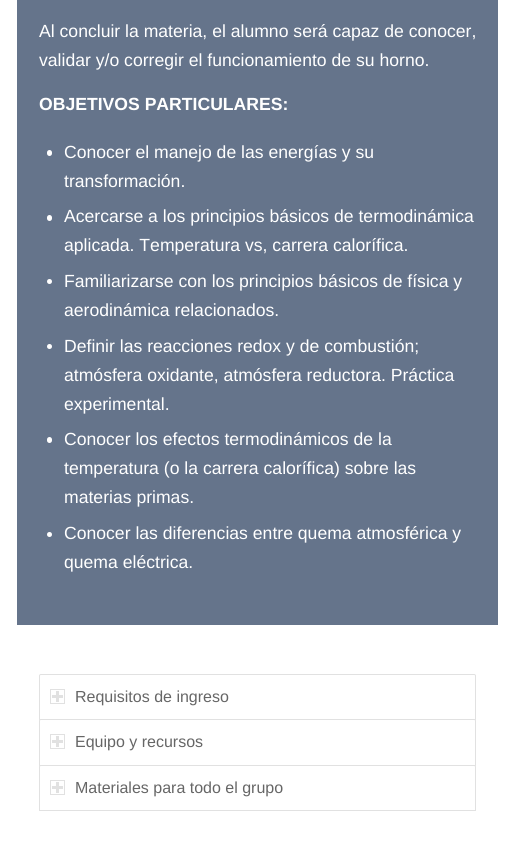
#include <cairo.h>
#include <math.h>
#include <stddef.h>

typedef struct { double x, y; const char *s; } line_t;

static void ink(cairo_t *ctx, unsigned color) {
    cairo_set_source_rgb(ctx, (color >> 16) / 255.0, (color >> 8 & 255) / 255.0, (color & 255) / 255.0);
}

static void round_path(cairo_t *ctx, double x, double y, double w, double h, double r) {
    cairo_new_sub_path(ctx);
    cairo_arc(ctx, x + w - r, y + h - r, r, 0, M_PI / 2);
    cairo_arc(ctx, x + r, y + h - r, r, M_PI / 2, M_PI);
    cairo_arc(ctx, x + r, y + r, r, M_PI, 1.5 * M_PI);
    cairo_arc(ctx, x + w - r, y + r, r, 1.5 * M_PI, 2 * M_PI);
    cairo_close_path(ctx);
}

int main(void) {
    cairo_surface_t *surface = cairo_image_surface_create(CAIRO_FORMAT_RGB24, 515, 860);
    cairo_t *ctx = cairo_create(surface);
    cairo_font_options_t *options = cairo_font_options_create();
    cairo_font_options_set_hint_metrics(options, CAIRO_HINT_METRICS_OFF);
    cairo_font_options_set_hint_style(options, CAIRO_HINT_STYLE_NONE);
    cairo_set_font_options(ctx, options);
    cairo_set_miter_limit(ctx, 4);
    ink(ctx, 0xFFFFFF);
    cairo_paint(ctx);
    ink(ctx, 0x65748B);
    cairo_rectangle(ctx, 17, 0, 481, 625);
    cairo_fill(ctx);
    cairo_select_font_face(ctx, "Liberation Sans", CAIRO_FONT_SLANT_NORMAL, CAIRO_FONT_WEIGHT_NORMAL);
    cairo_set_font_size(ctx, 17.6);
    ink(ctx, 0xFFFFFF);
    cairo_move_to(ctx, 39, 37);
    cairo_show_text(ctx, "Al concluir la materia, el alumno será capaz de conocer,");
    cairo_move_to(ctx, 39, 66);
    cairo_show_text(ctx, "validar y/o corregir el funcionamiento de su horno.");
    cairo_select_font_face(ctx, "Liberation Sans", CAIRO_FONT_SLANT_NORMAL, CAIRO_FONT_WEIGHT_BOLD);
    cairo_move_to(ctx, 39, 110);
    cairo_show_text(ctx, "OBJETIVOS PARTICULARES:");
    round_path(ctx, 47, 150, 5, 6, 2.5);
    cairo_fill(ctx);
    cairo_select_font_face(ctx, "Liberation Sans", CAIRO_FONT_SLANT_NORMAL, CAIRO_FONT_WEIGHT_NORMAL);
    cairo_move_to(ctx, 64, 158);
    cairo_show_text(ctx, "Conocer el manejo de las energías y su");
    cairo_move_to(ctx, 64, 187);
    cairo_show_text(ctx, "transformación.");
    round_path(ctx, 47, 215, 5, 6, 2.5);
    cairo_fill(ctx);
    cairo_move_to(ctx, 64, 222);
    cairo_show_text(ctx, "Acercarse a los principios básicos de termodinámica");
    cairo_move_to(ctx, 64, 251);
    cairo_show_text(ctx, "aplicada. Temperatura vs, carrera calorífica.");
    cairo_new_path(ctx);
    cairo_arc(ctx, 49.5, 281.5, 2.5, 0, 2 * M_PI);
    cairo_fill(ctx);
    cairo_move_to(ctx, 64, 287);
    cairo_show_text(ctx, "Familiarizarse con los principios básicos de física y");
    cairo_move_to(ctx, 64, 316);
    cairo_show_text(ctx, "aerodinámica relacionados.");
    cairo_new_path(ctx);
    cairo_arc(ctx, 49.5, 346.5, 2.5, 0, 2 * M_PI);
    cairo_fill(ctx);
    {
        static const line_t items[] = {
            {64, 352, "Definir las reacciones redox y de combustión;"},
            {64, 381, "atmósfera oxidante, atmósfera reductora. Práctica"},
            {64, 410, "experimental."},
        };
        for (size_t i = 0; i < sizeof items / sizeof *items; i++) {
            cairo_move_to(ctx, items[i].x, items[i].y);
            cairo_show_text(ctx, items[i].s);
        }
    }
    round_path(ctx, 47, 437, 5, 6, 2.5);
    cairo_fill(ctx);
    {
        static const line_t items[] = {
            {64, 445, "Conocer los efectos termodinámicos de la"},
            {64, 474, "temperatura (o la carrera calorífica) sobre las"},
            {64, 503, "materias primas."},
        };
        for (size_t i = 0; i < sizeof items / sizeof *items; i++) {
            cairo_move_to(ctx, items[i].x, items[i].y);
            cairo_show_text(ctx, items[i].s);
        }
    }
    cairo_new_path(ctx);
    cairo_arc(ctx, 49.5, 534.5, 2.5, 0, 2 * M_PI);
    cairo_fill(ctx);
    cairo_move_to(ctx, 64, 539);
    cairo_show_text(ctx, "Conocer las diferencias entre quema atmosférica y");
    cairo_move_to(ctx, 64, 568);
    cairo_show_text(ctx, "quema eléctrica.");
    cairo_new_path(ctx);
    cairo_move_to(ctx, 41, 674.5);
    cairo_line_to(ctx, 474, 674.5);
    cairo_curve_to(ctx, 475, 674.5, 475.5, 675, 475.5, 676);
    cairo_line_to(ctx, 475.5, 719.5);
    cairo_line_to(ctx, 39.5, 719.5);
    cairo_line_to(ctx, 39.5, 676);
    cairo_curve_to(ctx, 39.5, 675, 40, 674.5, 41, 674.5);
    cairo_close_path(ctx);
    ink(ctx, 0xE1E1E1);
    cairo_set_line_width(ctx, 1);
    cairo_stroke(ctx);
    cairo_rectangle(ctx, 50.5, 689.5, 14, 14);
    cairo_stroke(ctx);
    cairo_rectangle(ctx, 56, 691, 3, 11);
    cairo_fill(ctx);
    cairo_rectangle(ctx, 52, 695, 11, 3);
    cairo_fill(ctx);
    cairo_set_font_size(ctx, 16);
    ink(ctx, 0x666666);
    cairo_move_to(ctx, 75, 702);
    cairo_show_text(ctx, "Requisitos de ingreso");
    ink(ctx, 0xFFFFFF);
    cairo_new_path(ctx);
    cairo_move_to(ctx, 41, 719.5);
    cairo_line_to(ctx, 474, 719.5);
    cairo_curve_to(ctx, 475, 719.5, 475.5, 720, 475.5, 721);
    cairo_line_to(ctx, 475.5, 765.5);
    cairo_line_to(ctx, 39.5, 765.5);
    cairo_line_to(ctx, 39.5, 721);
    cairo_curve_to(ctx, 39.5, 720, 40, 719.5, 41, 719.5);
    cairo_close_path(ctx);
    cairo_fill_preserve(ctx);
    ink(ctx, 0xE1E1E1);
    cairo_stroke(ctx);
    cairo_rectangle(ctx, 50.5, 734.5, 14, 14);
    cairo_stroke(ctx);
    cairo_rectangle(ctx, 56, 736, 3, 11);
    cairo_fill(ctx);
    cairo_rectangle(ctx, 52, 740, 11, 3);
    cairo_fill(ctx);
    ink(ctx, 0x666666);
    cairo_move_to(ctx, 75, 747);
    cairo_show_text(ctx, "Equipo y recursos");
    ink(ctx, 0xFFFFFF);
    cairo_new_path(ctx);
    cairo_move_to(ctx, 41, 765.5);
    cairo_line_to(ctx, 474, 765.5);
    cairo_curve_to(ctx, 475, 765.5, 475.5, 766, 475.5, 767);
    cairo_line_to(ctx, 475.5, 810.5);
    cairo_line_to(ctx, 39.5, 810.5);
    cairo_line_to(ctx, 39.5, 767);
    cairo_curve_to(ctx, 39.5, 766, 40, 765.5, 41, 765.5);
    cairo_close_path(ctx);
    cairo_fill_preserve(ctx);
    ink(ctx, 0xE1E1E1);
    cairo_stroke(ctx);
    cairo_rectangle(ctx, 50.5, 780.5, 14, 14);
    cairo_stroke(ctx);
    cairo_rectangle(ctx, 56, 782, 3, 11);
    cairo_fill(ctx);
    cairo_rectangle(ctx, 52, 786, 11, 3);
    cairo_fill(ctx);
    ink(ctx, 0x666666);
    cairo_move_to(ctx, 75, 793);
    cairo_show_text(ctx, "Materiales para todo el grupo");
    cairo_surface_write_to_png(surface, "image.png");
    cairo_font_options_destroy(options);
    cairo_destroy(ctx);
    cairo_surface_destroy(surface);
    return 0;
}
